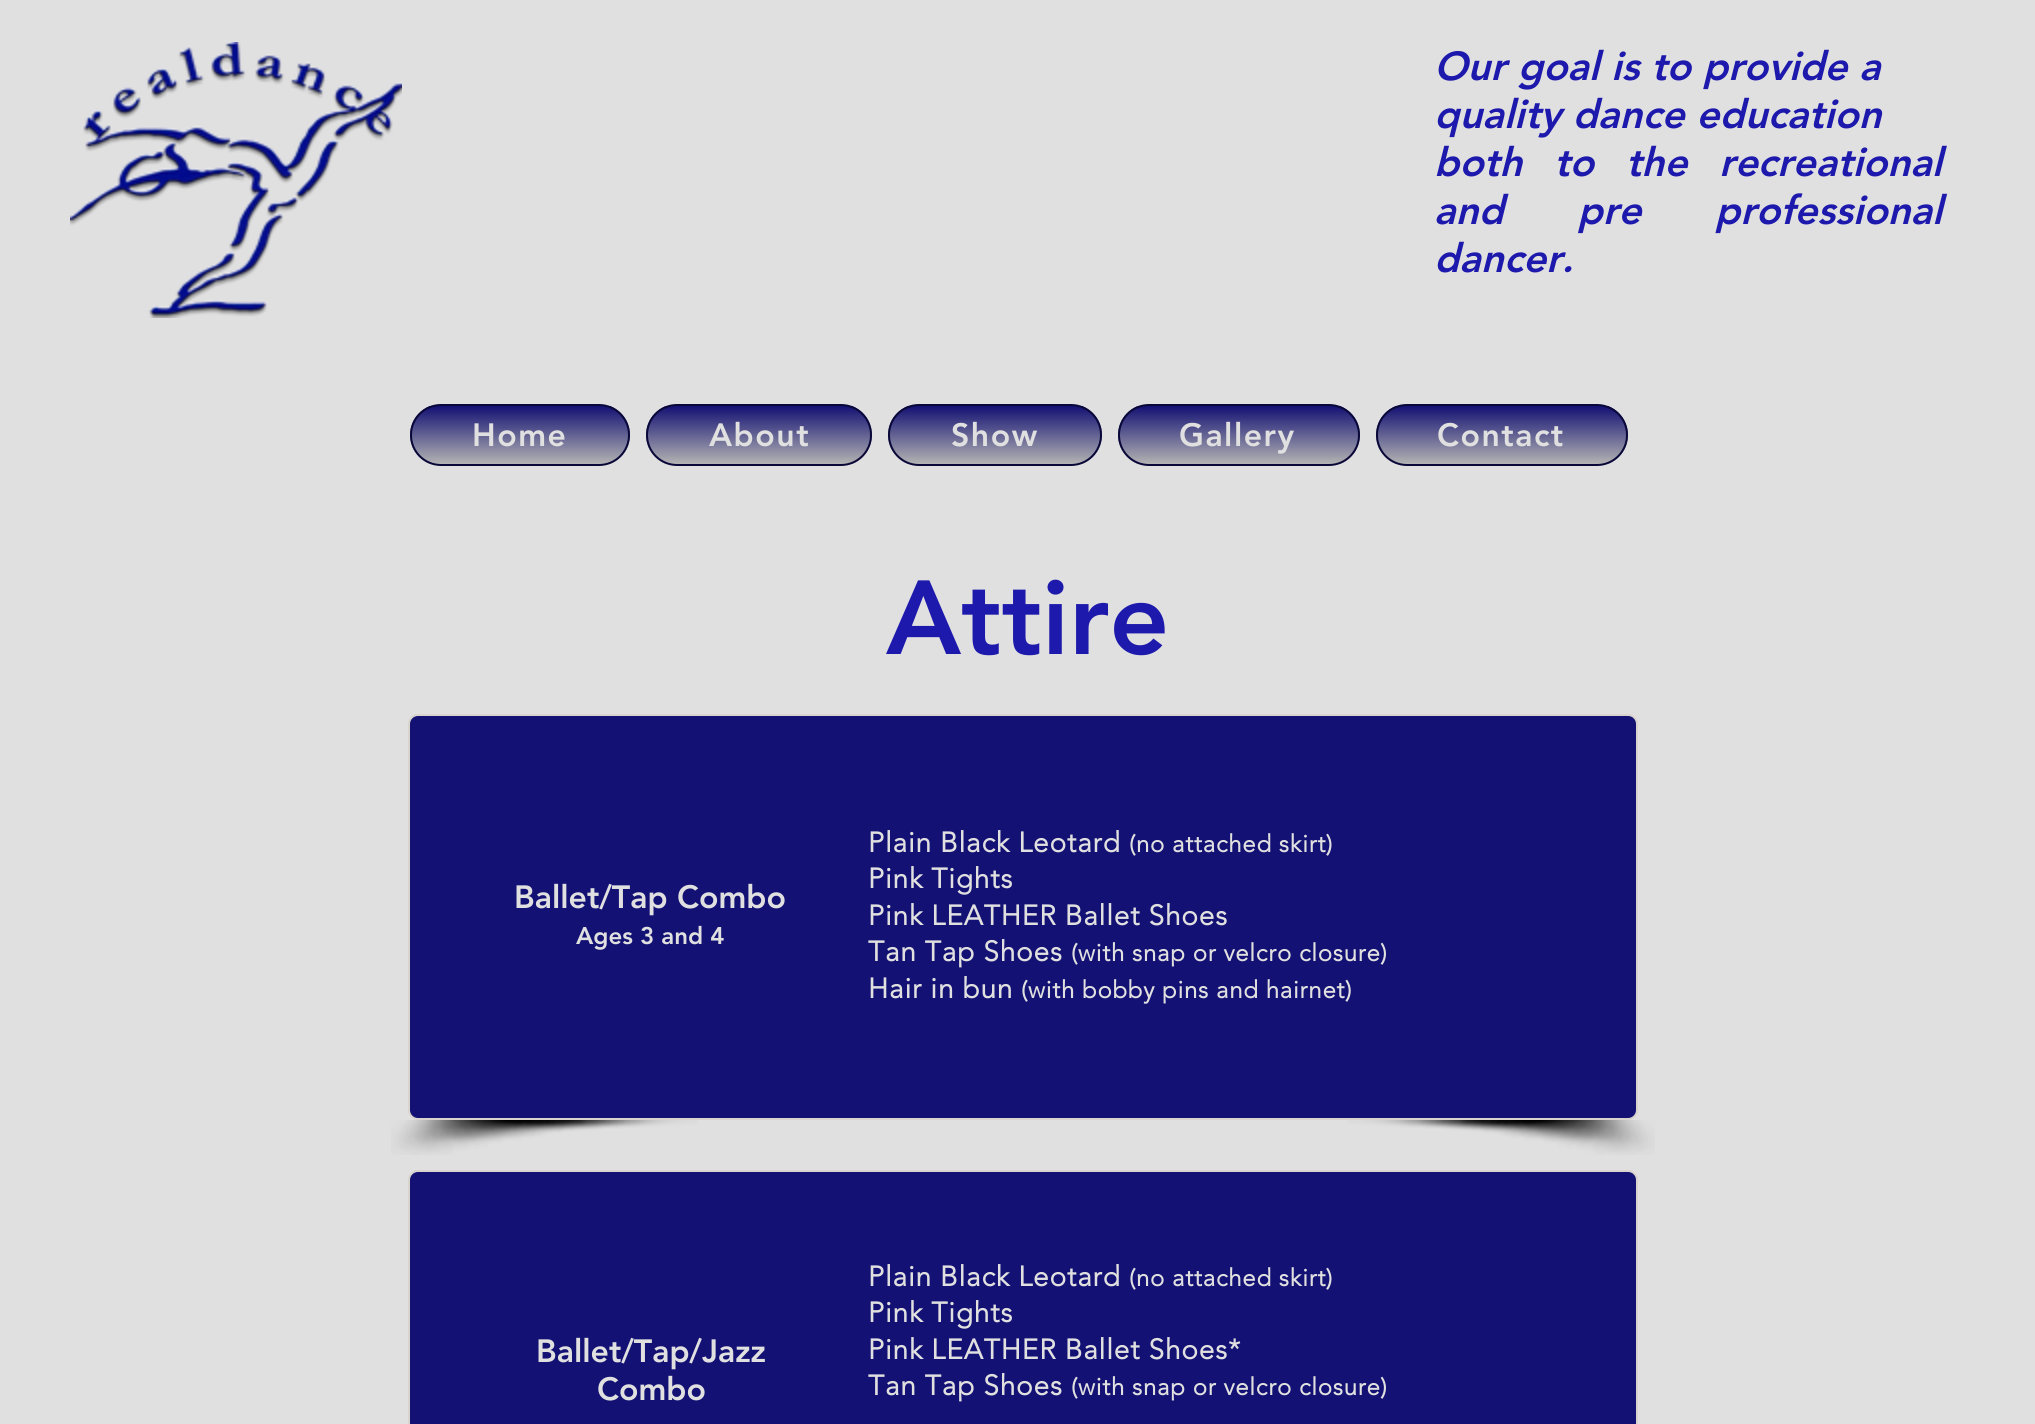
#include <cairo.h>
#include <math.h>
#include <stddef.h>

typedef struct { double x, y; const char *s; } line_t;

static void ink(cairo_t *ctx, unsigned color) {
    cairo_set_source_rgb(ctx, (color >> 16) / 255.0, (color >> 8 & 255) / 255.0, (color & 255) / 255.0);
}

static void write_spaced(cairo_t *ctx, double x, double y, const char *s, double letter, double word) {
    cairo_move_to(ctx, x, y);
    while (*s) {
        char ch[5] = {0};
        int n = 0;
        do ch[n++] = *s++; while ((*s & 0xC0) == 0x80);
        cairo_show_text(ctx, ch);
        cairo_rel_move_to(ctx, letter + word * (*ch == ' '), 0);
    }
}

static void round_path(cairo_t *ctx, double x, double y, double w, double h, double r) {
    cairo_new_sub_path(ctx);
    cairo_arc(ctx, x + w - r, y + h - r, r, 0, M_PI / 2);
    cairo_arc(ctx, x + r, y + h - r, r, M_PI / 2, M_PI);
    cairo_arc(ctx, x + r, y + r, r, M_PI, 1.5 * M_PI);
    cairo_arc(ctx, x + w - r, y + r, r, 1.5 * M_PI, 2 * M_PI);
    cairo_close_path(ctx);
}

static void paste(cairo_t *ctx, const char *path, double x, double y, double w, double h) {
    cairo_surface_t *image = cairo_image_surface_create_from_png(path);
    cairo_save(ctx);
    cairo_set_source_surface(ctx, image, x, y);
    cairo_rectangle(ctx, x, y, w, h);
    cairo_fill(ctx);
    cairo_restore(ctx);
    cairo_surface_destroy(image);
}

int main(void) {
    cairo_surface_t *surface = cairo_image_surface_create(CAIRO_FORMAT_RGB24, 2035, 1424);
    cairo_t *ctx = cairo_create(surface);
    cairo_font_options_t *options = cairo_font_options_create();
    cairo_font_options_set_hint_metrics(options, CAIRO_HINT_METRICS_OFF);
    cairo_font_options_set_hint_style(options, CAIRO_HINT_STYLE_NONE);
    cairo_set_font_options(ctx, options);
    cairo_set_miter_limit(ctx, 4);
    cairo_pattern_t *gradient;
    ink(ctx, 0xE0E0E0);
    cairo_paint(ctx);
    paste(ctx, "media/1.png", 70, 42, 332, 276);
    cairo_select_font_face(ctx, "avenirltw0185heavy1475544 Black", CAIRO_FONT_SLANT_ITALIC, CAIRO_FONT_WEIGHT_NORMAL);
    cairo_set_font_size(ctx, 40);
    ink(ctx, 0x1D19AC);
    cairo_move_to(ctx, 1434, 80);
    cairo_show_text(ctx, "Our goal is to provide a");
    cairo_move_to(ctx, 1434, 128);
    cairo_show_text(ctx, "quality dance education");
    write_spaced(ctx, 1434, 176, "both to the recreational", 0, 20);
    write_spaced(ctx, 1434, 224, "and pre professional", 0, 62);
    cairo_move_to(ctx, 1434, 272);
    cairo_show_text(ctx, "dancer.");
    cairo_save(ctx);
    round_path(ctx, 410, 404, 220, 62, 31);
    cairo_clip(ctx);
    gradient = cairo_pattern_create_linear(520, 406, 520, 464);
    cairo_pattern_add_color_stop_rgba(gradient, 0, 0.075, 0.067, 0.451, 1);
    cairo_pattern_add_color_stop_rgba(gradient, 1, 0.702, 0.702, 0.702, 1);
    cairo_set_source(ctx, gradient);
    cairo_pattern_destroy(gradient);
    cairo_rectangle(ctx, 410, 406, 220, 58);
    cairo_fill(ctx);
    cairo_restore(ctx);
    round_path(ctx, 411, 405, 218, 60, 30);
    ink(ctx, 0x0A0839);
    cairo_stroke(ctx);
    cairo_select_font_face(ctx, "avenirltw0185heavy1475544 Black", CAIRO_FONT_SLANT_NORMAL, CAIRO_FONT_WEIGHT_NORMAL);
    cairo_set_font_size(ctx, 32);
    ink(ctx, 0xE0E0E0);
    write_spaced(ctx, 472, 446, "Home", 1.5, 0);
    cairo_save(ctx);
    round_path(ctx, 646, 404, 226, 62, 31);
    cairo_clip(ctx);
    gradient = cairo_pattern_create_linear(759, 406, 759, 464);
    cairo_pattern_add_color_stop_rgba(gradient, 0, 0.075, 0.067, 0.451, 1);
    cairo_pattern_add_color_stop_rgba(gradient, 1, 0.702, 0.702, 0.702, 1);
    cairo_set_source(ctx, gradient);
    cairo_pattern_destroy(gradient);
    cairo_rectangle(ctx, 646, 406, 226, 58);
    cairo_fill(ctx);
    cairo_restore(ctx);
    round_path(ctx, 647, 405, 224, 60, 30);
    ink(ctx, 0x0A0839);
    cairo_stroke(ctx);
    ink(ctx, 0xE0E0E0);
    write_spaced(ctx, 709, 446, "About", 1.5, 0);
    cairo_save(ctx);
    round_path(ctx, 888, 404, 214, 62, 31);
    cairo_clip(ctx);
    gradient = cairo_pattern_create_linear(995, 406, 995, 464);
    cairo_pattern_add_color_stop_rgba(gradient, 0, 0.075, 0.067, 0.451, 1);
    cairo_pattern_add_color_stop_rgba(gradient, 1, 0.702, 0.702, 0.702, 1);
    cairo_set_source(ctx, gradient);
    cairo_pattern_destroy(gradient);
    cairo_rectangle(ctx, 888, 406, 214, 58);
    cairo_fill(ctx);
    cairo_restore(ctx);
    round_path(ctx, 889, 405, 212, 60, 30);
    ink(ctx, 0x0A0839);
    cairo_stroke(ctx);
    ink(ctx, 0xE0E0E0);
    write_spaced(ctx, 951, 446, "Show", 1.5, 0);
    cairo_save(ctx);
    round_path(ctx, 1118, 404, 242, 62, 31);
    cairo_clip(ctx);
    gradient = cairo_pattern_create_linear(1239, 406, 1239, 464);
    cairo_pattern_add_color_stop_rgba(gradient, 0, 0.075, 0.067, 0.451, 1);
    cairo_pattern_add_color_stop_rgba(gradient, 1, 0.702, 0.702, 0.702, 1);
    cairo_set_source(ctx, gradient);
    cairo_pattern_destroy(gradient);
    cairo_rectangle(ctx, 1118, 406, 242, 58);
    cairo_fill(ctx);
    cairo_restore(ctx);
    round_path(ctx, 1119, 405, 240, 60, 30);
    ink(ctx, 0x0A0839);
    cairo_stroke(ctx);
    ink(ctx, 0xE0E0E0);
    write_spaced(ctx, 1179, 446, "Gallery", 1.5, 0);
    cairo_save(ctx);
    round_path(ctx, 1376, 404, 252, 62, 31);
    cairo_clip(ctx);
    gradient = cairo_pattern_create_linear(1502, 406, 1502, 464);
    cairo_pattern_add_color_stop_rgba(gradient, 0, 0.075, 0.067, 0.451, 1);
    cairo_pattern_add_color_stop_rgba(gradient, 1, 0.702, 0.702, 0.702, 1);
    cairo_set_source(ctx, gradient);
    cairo_pattern_destroy(gradient);
    cairo_rectangle(ctx, 1376, 406, 252, 58);
    cairo_fill(ctx);
    cairo_restore(ctx);
    round_path(ctx, 1377, 405, 250, 60, 30);
    ink(ctx, 0x0A0839);
    cairo_stroke(ctx);
    ink(ctx, 0xE0E0E0);
    write_spaced(ctx, 1437, 446, "Contact", 1.5, 0);
    cairo_set_font_size(ctx, 104);
    ink(ctx, 0x1D19AC);
    cairo_move_to(ctx, 886, 654);
    cairo_show_text(ctx, "Attire");
    ink(ctx, 0x131173);
    round_path(ctx, 409, 715, 1228, 404, 9);
    cairo_fill_preserve(ctx);
    ink(ctx, 0xD9D4CE);
    cairo_stroke(ctx);
    cairo_set_font_size(ctx, 32);
    ink(ctx, 0xE0E0E0);
    cairo_move_to(ctx, 514, 908);
    cairo_show_text(ctx, "Ballet/Tap Combo");
    cairo_set_font_size(ctx, 24);
    cairo_move_to(ctx, 576, 944);
    cairo_show_text(ctx, "Ages 3 and 4");
    cairo_select_font_face(ctx, "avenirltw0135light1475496", CAIRO_FONT_SLANT_NORMAL, CAIRO_FONT_WEIGHT_BOLD);
    cairo_set_font_size(ctx, 28);
    write_spaced(ctx, 868, 852, "Plain Black Leotard", 0.85, 0);
    cairo_set_font_size(ctx, 24);
    write_spaced(ctx, 1129, 852, "(no attached skirt)", 0.75, 0);
    cairo_set_font_size(ctx, 28);
    {
        static const line_t items[] = {
            {868, 888, "Pink Tights"},
            {868, 925, "Pink LEATHER Ballet Shoes"},
            {868, 961, "Tan Tap Shoes"},
        };
        for (size_t i = 0; i < sizeof items / sizeof *items; i++) {
            write_spaced(ctx, items[i].x, items[i].y, items[i].s, 0.85, 0);
        }
    }
    cairo_set_font_size(ctx, 24);
    write_spaced(ctx, 1071, 961, "(with snap or velcro closure)", 0.75, 0);
    cairo_set_font_size(ctx, 28);
    write_spaced(ctx, 868, 998, "Hair in bun", 0.85, 0);
    cairo_set_font_size(ctx, 24);
    write_spaced(ctx, 1021, 998, "(with bobby pins and hairnet)", 0.75, 0);
    paste(ctx, "media/2.png", 391, 1120, 307, 35);
    paste(ctx, "media/3.png", 1348, 1120, 307, 35);
    ink(ctx, 0x131173);
    round_path(ctx, 409, 1171, 1228, 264, 9);
    cairo_fill_preserve(ctx);
    ink(ctx, 0xD9D4CE);
    cairo_stroke(ctx);
    cairo_select_font_face(ctx, "avenirltw0185heavy1475544 Black", CAIRO_FONT_SLANT_NORMAL, CAIRO_FONT_WEIGHT_NORMAL);
    cairo_set_font_size(ctx, 32);
    ink(ctx, 0xE0E0E0);
    cairo_move_to(ctx, 536, 1362);
    cairo_show_text(ctx, "Ballet/Tap/Jazz");
    cairo_move_to(ctx, 597, 1400);
    cairo_show_text(ctx, "Combo");
    cairo_select_font_face(ctx, "avenirltw0135light1475496", CAIRO_FONT_SLANT_NORMAL, CAIRO_FONT_WEIGHT_BOLD);
    cairo_set_font_size(ctx, 28);
    write_spaced(ctx, 868, 1286, "Plain Black Leotard", 0.85, 0);
    cairo_set_font_size(ctx, 24);
    write_spaced(ctx, 1129, 1286, "(no attached skirt)", 0.75, 0);
    cairo_set_font_size(ctx, 28);
    {
        static const line_t items[] = {
            {868, 1322, "Pink Tights"},
            {868, 1359, "Pink LEATHER Ballet Shoes*"},
            {868, 1395, "Tan Tap Shoes"},
        };
        for (size_t i = 0; i < sizeof items / sizeof *items; i++) {
            write_spaced(ctx, items[i].x, items[i].y, items[i].s, 0.85, 0);
        }
    }
    cairo_set_font_size(ctx, 24);
    write_spaced(ctx, 1071, 1395, "(with snap or velcro closure)", 0.75, 0);
    cairo_surface_write_to_png(surface, "image.png");
    cairo_font_options_destroy(options);
    cairo_destroy(ctx);
    cairo_surface_destroy(surface);
    return 0;
}
